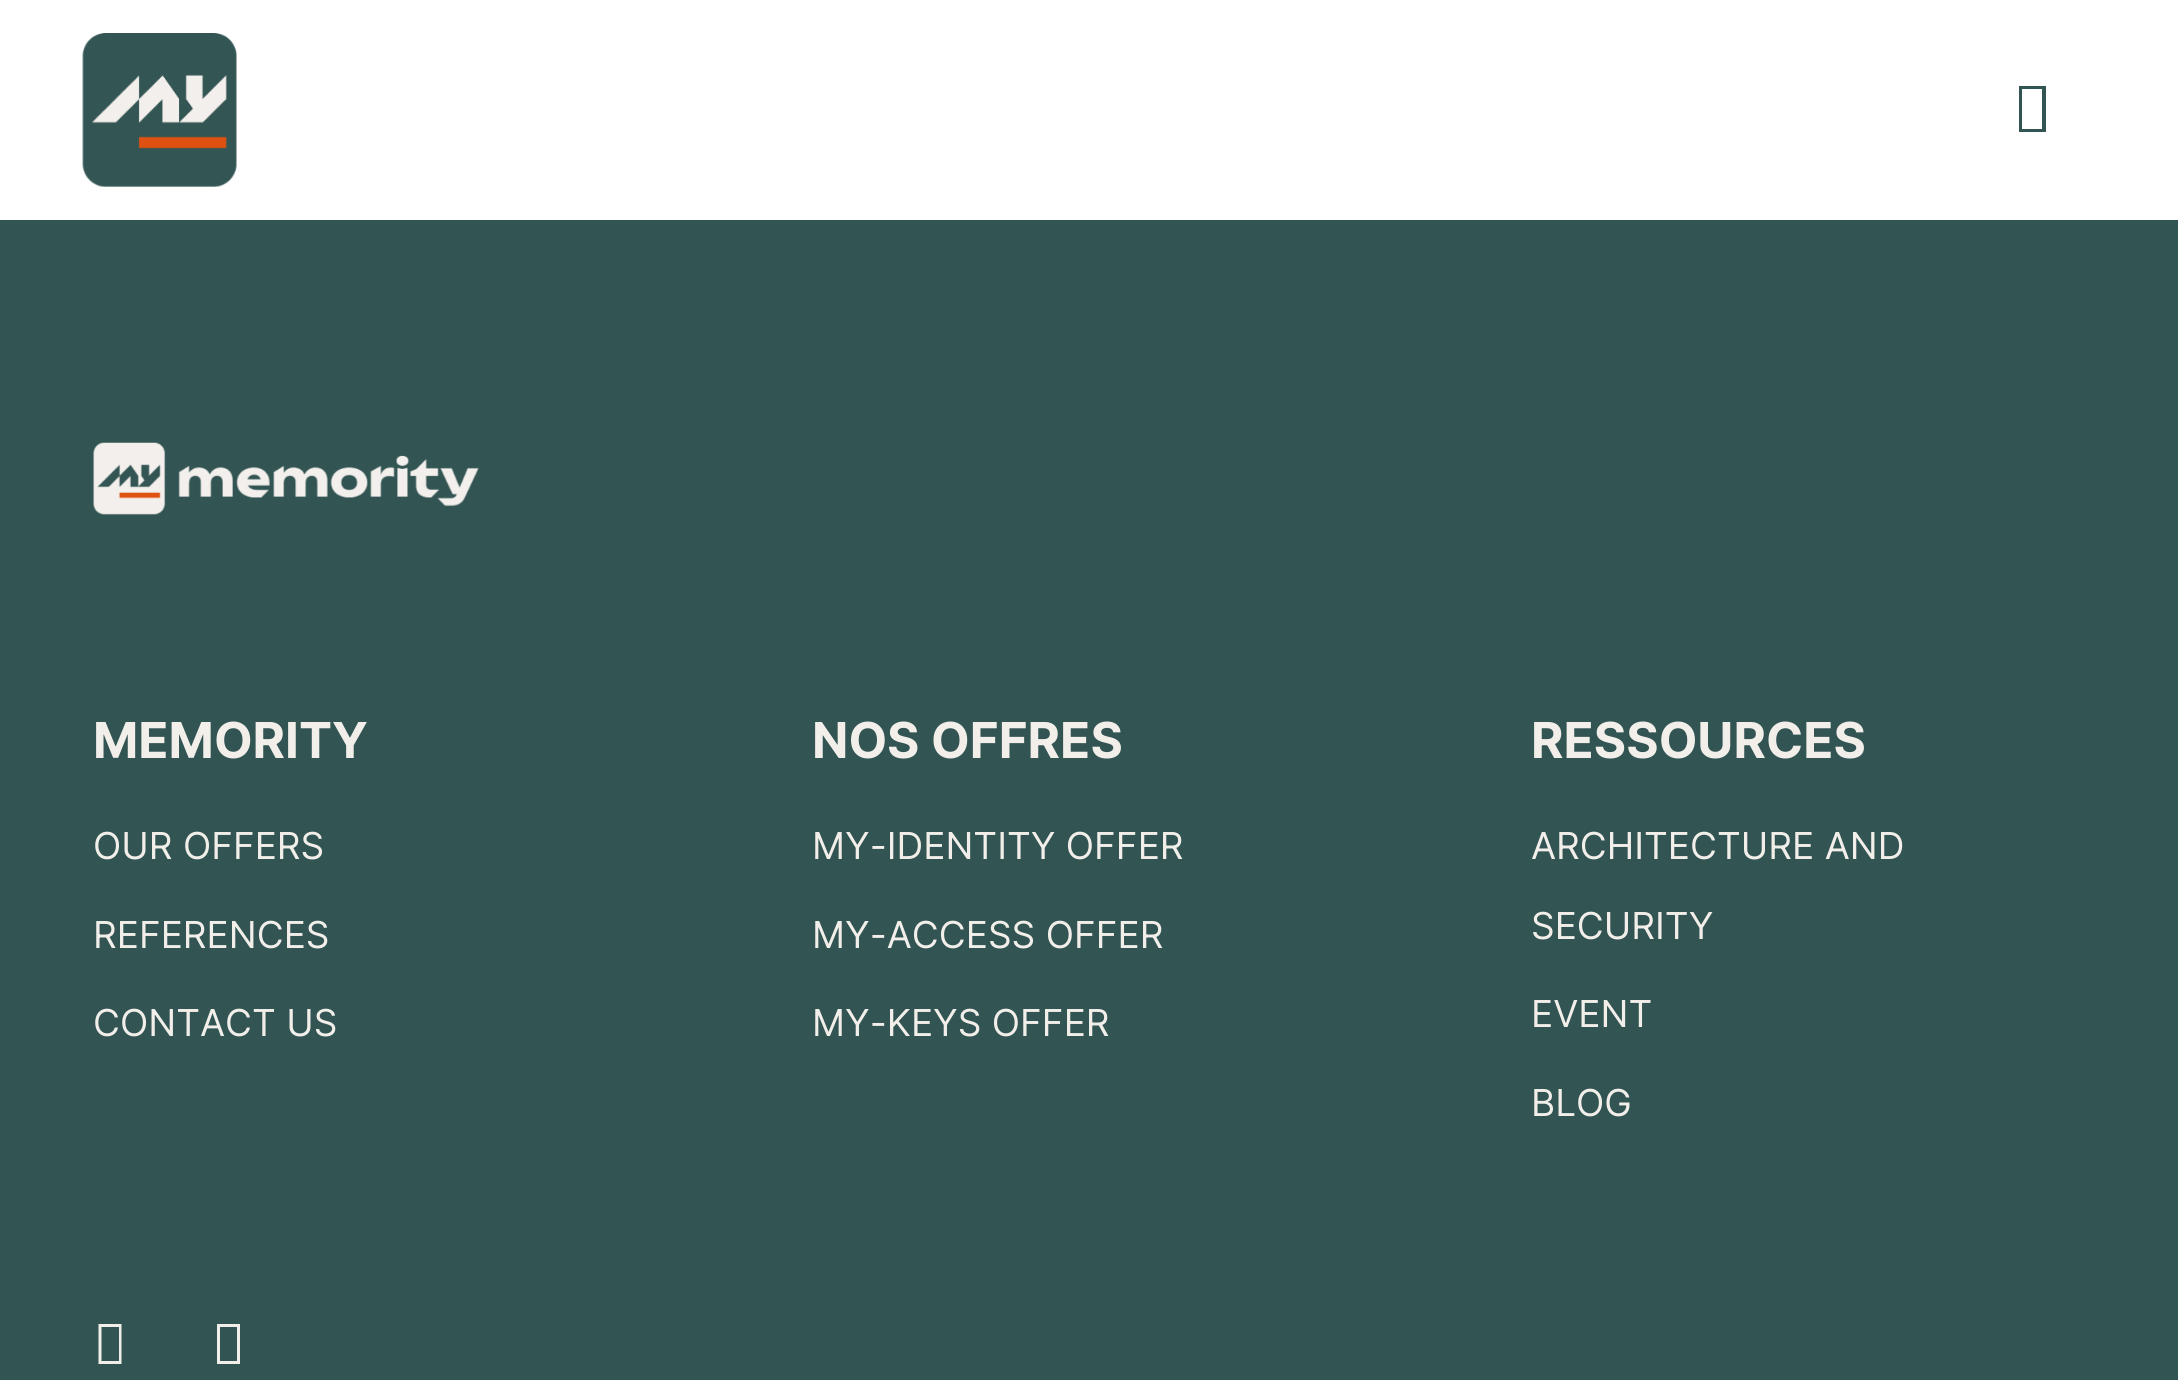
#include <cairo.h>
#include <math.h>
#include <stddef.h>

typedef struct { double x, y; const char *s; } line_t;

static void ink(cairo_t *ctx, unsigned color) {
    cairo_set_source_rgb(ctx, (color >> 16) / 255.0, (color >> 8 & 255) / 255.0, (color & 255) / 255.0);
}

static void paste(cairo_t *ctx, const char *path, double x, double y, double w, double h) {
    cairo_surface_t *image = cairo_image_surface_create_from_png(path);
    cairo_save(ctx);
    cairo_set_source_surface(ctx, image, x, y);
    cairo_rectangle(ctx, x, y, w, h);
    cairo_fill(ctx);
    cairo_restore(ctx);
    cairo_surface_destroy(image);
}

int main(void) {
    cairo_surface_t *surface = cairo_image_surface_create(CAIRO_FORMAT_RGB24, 2178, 1380);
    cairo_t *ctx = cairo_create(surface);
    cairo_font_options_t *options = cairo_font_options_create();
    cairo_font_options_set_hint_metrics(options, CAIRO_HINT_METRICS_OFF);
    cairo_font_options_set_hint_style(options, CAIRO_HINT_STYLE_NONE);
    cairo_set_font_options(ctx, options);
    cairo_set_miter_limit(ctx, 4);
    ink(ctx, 0x325452);
    cairo_paint(ctx);
    ink(ctx, 0xFFFFFF);
    cairo_rectangle(ctx, 0, 0, 2178, 220);
    cairo_fill(ctx);
    paste(ctx, "media/1.png", 82, 33, 155, 154);
    ink(ctx, 0x325452);
    cairo_new_path(ctx);
    cairo_move_to(ctx, 2019, 132);
    cairo_line_to(ctx, 2019, 86);
    cairo_line_to(ctx, 2046, 86);
    cairo_line_to(ctx, 2046, 132);
    cairo_close_path(ctx);
    cairo_move_to(ctx, 2022, 129);
    cairo_line_to(ctx, 2042, 129);
    cairo_line_to(ctx, 2042, 89);
    cairo_line_to(ctx, 2022, 89);
    cairo_close_path(ctx);
    cairo_fill(ctx);
    paste(ctx, "media/2.png", 93, 442, 386, 73);
    cairo_select_font_face(ctx, "Inter", CAIRO_FONT_SLANT_NORMAL, CAIRO_FONT_WEIGHT_BOLD);
    cairo_set_font_size(ctx, 49.5);
    ink(ctx, 0xF2EFEB);
    cairo_move_to(ctx, 93, 758);
    cairo_show_text(ctx, "MEMORITY");
    cairo_select_font_face(ctx, "Inter", CAIRO_FONT_SLANT_NORMAL, CAIRO_FONT_WEIGHT_NORMAL);
    cairo_set_font_size(ctx, 37.1);
    {
        static const line_t items[] = {
            {93, 859, "OUR OFFERS"},
            {93, 948, "REFERENCES"},
            {93, 1036, "CONTACT US"},
        };
        for (size_t i = 0; i < sizeof items / sizeof *items; i++) {
            cairo_move_to(ctx, items[i].x, items[i].y);
            cairo_show_text(ctx, items[i].s);
        }
    }
    cairo_select_font_face(ctx, "Inter", CAIRO_FONT_SLANT_NORMAL, CAIRO_FONT_WEIGHT_BOLD);
    cairo_set_font_size(ctx, 49.5);
    cairo_move_to(ctx, 812, 758);
    cairo_show_text(ctx, "NOS OFFRES");
    cairo_select_font_face(ctx, "Inter", CAIRO_FONT_SLANT_NORMAL, CAIRO_FONT_WEIGHT_NORMAL);
    cairo_set_font_size(ctx, 37.1);
    {
        static const line_t items[] = {
            {812, 859, "MY-IDENTITY OFFER"},
            {812, 948, "MY-ACCESS OFFER"},
            {812, 1036, "MY-KEYS OFFER"},
        };
        for (size_t i = 0; i < sizeof items / sizeof *items; i++) {
            cairo_move_to(ctx, items[i].x, items[i].y);
            cairo_show_text(ctx, items[i].s);
        }
    }
    cairo_select_font_face(ctx, "Inter", CAIRO_FONT_SLANT_NORMAL, CAIRO_FONT_WEIGHT_BOLD);
    cairo_set_font_size(ctx, 49.5);
    cairo_move_to(ctx, 1531, 758);
    cairo_show_text(ctx, "RESSOURCES");
    cairo_select_font_face(ctx, "Inter", CAIRO_FONT_SLANT_NORMAL, CAIRO_FONT_WEIGHT_NORMAL);
    cairo_set_font_size(ctx, 37.1);
    {
        static const line_t items[] = {
            {1531, 859, "ARCHITECTURE AND"},
            {1531, 939, "SECURITY"},
            {1531, 1027, "EVENT"},
            {1531, 1116, "BLOG"},
        };
        for (size_t i = 0; i < sizeof items / sizeof *items; i++) {
            cairo_move_to(ctx, items[i].x, items[i].y);
            cairo_show_text(ctx, items[i].s);
        }
    }
    cairo_new_path(ctx);
    cairo_move_to(ctx, 98.5, 1364);
    cairo_line_to(ctx, 98.5, 1324);
    cairo_line_to(ctx, 121.5, 1324);
    cairo_line_to(ctx, 121.5, 1364);
    cairo_close_path(ctx);
    cairo_move_to(ctx, 101.5, 1361);
    cairo_line_to(ctx, 119, 1361);
    cairo_line_to(ctx, 119, 1327);
    cairo_line_to(ctx, 101.5, 1327);
    cairo_close_path(ctx);
    cairo_fill(ctx);
    cairo_new_path(ctx);
    cairo_move_to(ctx, 217, 1364);
    cairo_line_to(ctx, 217, 1324);
    cairo_line_to(ctx, 240, 1324);
    cairo_line_to(ctx, 240, 1364);
    cairo_close_path(ctx);
    cairo_move_to(ctx, 220, 1361);
    cairo_line_to(ctx, 237, 1361);
    cairo_line_to(ctx, 237, 1327);
    cairo_line_to(ctx, 220, 1327);
    cairo_close_path(ctx);
    cairo_fill(ctx);
    cairo_surface_write_to_png(surface, "image.png");
    cairo_font_options_destroy(options);
    cairo_destroy(ctx);
    cairo_surface_destroy(surface);
    return 0;
}
